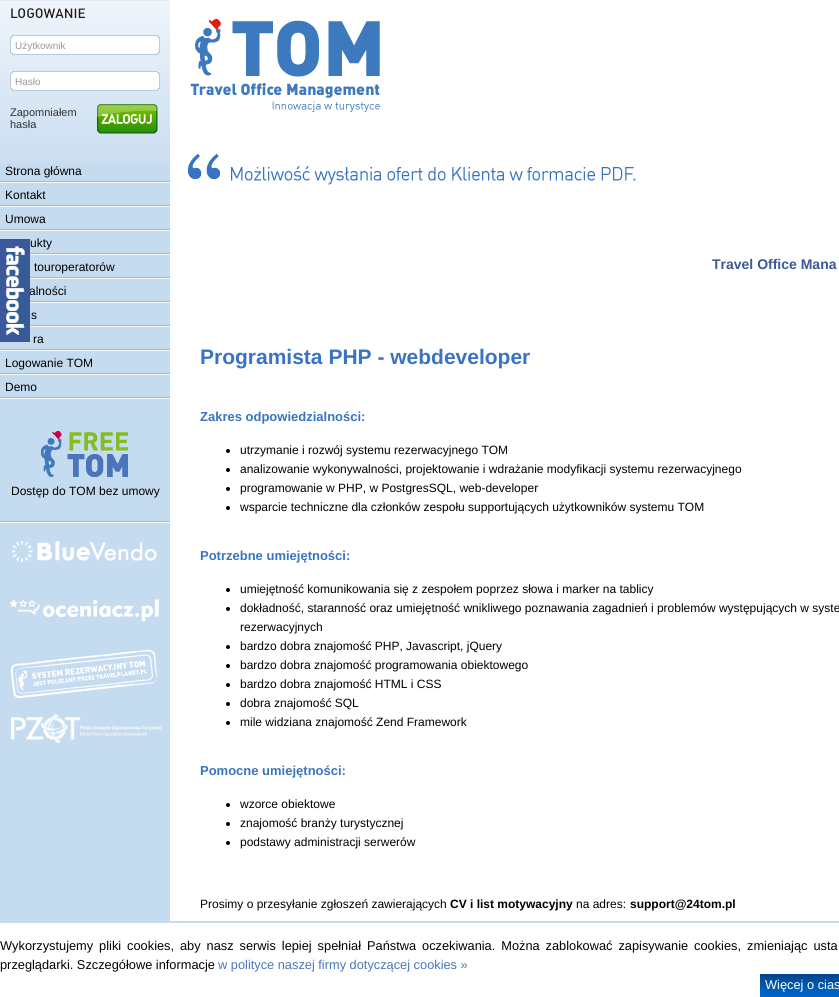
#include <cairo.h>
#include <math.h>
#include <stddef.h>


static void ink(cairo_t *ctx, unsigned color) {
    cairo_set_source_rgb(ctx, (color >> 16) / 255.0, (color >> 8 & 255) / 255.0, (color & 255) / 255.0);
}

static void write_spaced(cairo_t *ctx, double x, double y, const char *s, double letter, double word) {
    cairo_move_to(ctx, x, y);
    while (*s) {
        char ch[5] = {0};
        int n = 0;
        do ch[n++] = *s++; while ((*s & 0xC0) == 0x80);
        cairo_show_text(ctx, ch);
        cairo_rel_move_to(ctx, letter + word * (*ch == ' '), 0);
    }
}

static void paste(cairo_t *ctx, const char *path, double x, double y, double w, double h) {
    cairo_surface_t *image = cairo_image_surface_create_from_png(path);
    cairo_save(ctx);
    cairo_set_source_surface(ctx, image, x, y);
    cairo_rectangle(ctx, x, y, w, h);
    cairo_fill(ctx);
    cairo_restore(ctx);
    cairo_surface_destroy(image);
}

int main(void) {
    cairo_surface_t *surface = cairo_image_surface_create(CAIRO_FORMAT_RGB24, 839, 997);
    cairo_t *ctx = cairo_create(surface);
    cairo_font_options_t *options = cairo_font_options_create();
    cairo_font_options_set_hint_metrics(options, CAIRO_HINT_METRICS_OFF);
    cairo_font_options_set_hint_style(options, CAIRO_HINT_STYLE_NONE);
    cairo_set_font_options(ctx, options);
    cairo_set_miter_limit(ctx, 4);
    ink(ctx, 0xFFFFFF);
    cairo_paint(ctx);
    ink(ctx, 0xC5DBEF);
    cairo_rectangle(ctx, 0, 164, 170, 757);
    cairo_fill(ctx);
    paste(ctx, "media/1.png", 0, 0, 170, 164);
    paste(ctx, "media/2.png", 11, 8, 74, 10);
    paste(ctx, "media/3.png", 10, 35, 150, 20);
    cairo_select_font_face(ctx, "Liberation Sans", CAIRO_FONT_SLANT_NORMAL, CAIRO_FONT_WEIGHT_NORMAL);
    cairo_set_font_size(ctx, 10);
    ink(ctx, 0x999999);
    cairo_move_to(ctx, 15, 49);
    cairo_show_text(ctx, "Użytkownik");
    paste(ctx, "media/3.png", 10, 71, 150, 20);
    cairo_move_to(ctx, 15, 85);
    cairo_show_text(ctx, "Hasło");
    cairo_set_font_size(ctx, 11);
    ink(ctx, 0x333333);
    cairo_move_to(ctx, 10, 116);
    cairo_show_text(ctx, "Zapomniałem");
    cairo_move_to(ctx, 10, 128);
    cairo_show_text(ctx, "hasła");
    paste(ctx, "media/4.png", 97, 104, 61, 30);
    paste(ctx, "media/5.png", 0, 181, 170, 2);
    cairo_set_font_size(ctx, 12);
    ink(ctx, 0x000000);
    cairo_move_to(ctx, 5, 175);
    cairo_show_text(ctx, "Strona główna");
    paste(ctx, "media/5.png", 0, 205, 170, 2);
    cairo_move_to(ctx, 5, 199);
    cairo_show_text(ctx, "Kontakt");
    paste(ctx, "media/5.png", 0, 229, 170, 2);
    cairo_move_to(ctx, 5, 223);
    cairo_show_text(ctx, "Umowa");
    paste(ctx, "media/6.png", 30, 253, 140, 2);
    cairo_move_to(ctx, 30, 247);
    cairo_show_text(ctx, "ukty");
    paste(ctx, "media/6.png", 30, 277, 140, 2);
    cairo_move_to(ctx, 34, 271);
    cairo_show_text(ctx, "touroperatorów");
    paste(ctx, "media/6.png", 30, 301, 140, 2);
    cairo_move_to(ctx, 29, 295);
    cairo_show_text(ctx, "alności");
    paste(ctx, "media/6.png", 30, 325, 140, 2);
    cairo_move_to(ctx, 31, 319);
    cairo_show_text(ctx, "s");
    paste(ctx, "media/5.png", 0, 349, 170, 2);
    cairo_move_to(ctx, 33, 343);
    cairo_show_text(ctx, "ra");
    paste(ctx, "media/5.png", 0, 373, 170, 2);
    cairo_move_to(ctx, 5, 367);
    cairo_show_text(ctx, "Logowanie TOM");
    paste(ctx, "media/5.png", 0, 397, 170, 2);
    cairo_move_to(ctx, 5, 391);
    cairo_show_text(ctx, "Demo");
    paste(ctx, "media/5.png", 0, 521, 170, 2);
    paste(ctx, "media/7.png", 41, 428, 124, 56);
    cairo_move_to(ctx, 11, 495);
    cairo_show_text(ctx, "Dostęp do TOM bez umowy");
    paste(ctx, "media/8.png", 12, 534, 153, 34);
    paste(ctx, "media/9.png", 10, 588, 155, 34);
    paste(ctx, "media/10.png", 11, 649, 154, 49);
    paste(ctx, "media/11.png", 11, 714, 150, 29);
    paste(ctx, "media/12.png", 190, 19, 190, 93);
    paste(ctx, "media/13.png", 188, 154, 448, 31);
    cairo_select_font_face(ctx, "Liberation Sans", CAIRO_FONT_SLANT_NORMAL, CAIRO_FONT_WEIGHT_BOLD);
    cairo_set_font_size(ctx, 14);
    ink(ctx, 0x3B5998);
    cairo_move_to(ctx, 712, 269);
    cairo_show_text(ctx, "Travel Office Mana");
    cairo_set_font_size(ctx, 21);
    ink(ctx, 0x3874C2);
    cairo_move_to(ctx, 200, 364);
    cairo_show_text(ctx, "Programista PHP - webdeveloper");
    cairo_set_font_size(ctx, 13);
    cairo_move_to(ctx, 200, 421);
    cairo_show_text(ctx, "Zakres odpowiedzialności:");
    ink(ctx, 0x000000);
    cairo_new_path(ctx);
    cairo_arc(ctx, 228, 451, 2, 0, 2 * M_PI);
    cairo_fill(ctx);
    cairo_select_font_face(ctx, "Liberation Sans", CAIRO_FONT_SLANT_NORMAL, CAIRO_FONT_WEIGHT_NORMAL);
    cairo_set_font_size(ctx, 12);
    cairo_move_to(ctx, 240, 454);
    cairo_show_text(ctx, "utrzymanie i rozwój systemu rezerwacyjnego TOM");
    cairo_new_path(ctx);
    cairo_arc(ctx, 228, 470, 2, 0, 2 * M_PI);
    cairo_fill(ctx);
    cairo_move_to(ctx, 240, 473);
    cairo_show_text(ctx, "analizowanie wykonywalności, projektowanie i wdrażanie modyfikacji systemu rezerwacyjnego");
    cairo_new_path(ctx);
    cairo_arc(ctx, 228, 489, 2, 0, 2 * M_PI);
    cairo_fill(ctx);
    cairo_move_to(ctx, 240, 492);
    cairo_show_text(ctx, "programowanie w PHP, w PostgresSQL, web-developer");
    cairo_new_path(ctx);
    cairo_arc(ctx, 228, 508, 2, 0, 2 * M_PI);
    cairo_fill(ctx);
    cairo_move_to(ctx, 240, 511);
    cairo_show_text(ctx, "wsparcie techniczne dla członków zespołu supportujących użytkowników systemu TOM");
    cairo_select_font_face(ctx, "Liberation Sans", CAIRO_FONT_SLANT_NORMAL, CAIRO_FONT_WEIGHT_BOLD);
    cairo_set_font_size(ctx, 13);
    ink(ctx, 0x3874C2);
    cairo_move_to(ctx, 200, 560);
    cairo_show_text(ctx, "Potrzebne umiejętności:");
    ink(ctx, 0x000000);
    cairo_new_path(ctx);
    cairo_arc(ctx, 228, 590, 2, 0, 2 * M_PI);
    cairo_fill(ctx);
    cairo_select_font_face(ctx, "Liberation Sans", CAIRO_FONT_SLANT_NORMAL, CAIRO_FONT_WEIGHT_NORMAL);
    cairo_set_font_size(ctx, 12);
    cairo_move_to(ctx, 240, 593);
    cairo_show_text(ctx, "umiejętność komunikowania się z zespołem poprzez słowa i marker na tablicy");
    cairo_new_path(ctx);
    cairo_arc(ctx, 228, 609, 2, 0, 2 * M_PI);
    cairo_fill(ctx);
    cairo_move_to(ctx, 240, 612);
    cairo_show_text(ctx, "dokładność, staranność oraz umiejętność wnikliwego poznawania zagadnień i problemów występujących w syste");
    cairo_move_to(ctx, 240, 631);
    cairo_show_text(ctx, "rezerwacyjnych");
    cairo_new_path(ctx);
    cairo_arc(ctx, 228, 647, 2, 0, 2 * M_PI);
    cairo_fill(ctx);
    cairo_move_to(ctx, 240, 650);
    cairo_show_text(ctx, "bardzo dobra znajomość PHP, Javascript, jQuery");
    cairo_new_path(ctx);
    cairo_arc(ctx, 228, 666, 2, 0, 2 * M_PI);
    cairo_fill(ctx);
    cairo_move_to(ctx, 240, 669);
    cairo_show_text(ctx, "bardzo dobra znajomość programowania obiektowego");
    cairo_new_path(ctx);
    cairo_arc(ctx, 228, 685, 2, 0, 2 * M_PI);
    cairo_fill(ctx);
    cairo_move_to(ctx, 240, 688);
    cairo_show_text(ctx, "bardzo dobra znajomość HTML i CSS");
    cairo_new_path(ctx);
    cairo_arc(ctx, 228, 704, 2, 0, 2 * M_PI);
    cairo_fill(ctx);
    cairo_move_to(ctx, 240, 707);
    cairo_show_text(ctx, "dobra znajomość SQL");
    cairo_new_path(ctx);
    cairo_arc(ctx, 228, 723, 2, 0, 2 * M_PI);
    cairo_fill(ctx);
    cairo_move_to(ctx, 240, 726);
    cairo_show_text(ctx, "mile widziana znajomość Zend Framework");
    cairo_select_font_face(ctx, "Liberation Sans", CAIRO_FONT_SLANT_NORMAL, CAIRO_FONT_WEIGHT_BOLD);
    cairo_set_font_size(ctx, 13);
    ink(ctx, 0x3874C2);
    cairo_move_to(ctx, 200, 775);
    cairo_show_text(ctx, "Pomocne umiejętności:");
    ink(ctx, 0x000000);
    cairo_new_path(ctx);
    cairo_arc(ctx, 228, 805, 2, 0, 2 * M_PI);
    cairo_fill(ctx);
    cairo_select_font_face(ctx, "Liberation Sans", CAIRO_FONT_SLANT_NORMAL, CAIRO_FONT_WEIGHT_NORMAL);
    cairo_set_font_size(ctx, 12);
    cairo_move_to(ctx, 240, 808);
    cairo_show_text(ctx, "wzorce obiektowe");
    cairo_new_path(ctx);
    cairo_arc(ctx, 228, 824, 2, 0, 2 * M_PI);
    cairo_fill(ctx);
    cairo_move_to(ctx, 240, 827);
    cairo_show_text(ctx, "znajomość branży turystycznej");
    cairo_new_path(ctx);
    cairo_arc(ctx, 228, 843, 2, 0, 2 * M_PI);
    cairo_fill(ctx);
    cairo_move_to(ctx, 240, 846);
    cairo_show_text(ctx, "podstawy administracji serwerów");
    cairo_move_to(ctx, 200, 908);
    cairo_show_text(ctx, "Prosimy o przesyłanie zgłoszeń zawierających");
    cairo_select_font_face(ctx, "Liberation Sans", CAIRO_FONT_SLANT_NORMAL, CAIRO_FONT_WEIGHT_BOLD);
    cairo_move_to(ctx, 450, 908);
    cairo_show_text(ctx, "CV i list motywacyjny");
    cairo_select_font_face(ctx, "Liberation Sans", CAIRO_FONT_SLANT_NORMAL, CAIRO_FONT_WEIGHT_NORMAL);
    cairo_move_to(ctx, 576, 908);
    cairo_show_text(ctx, "na adres:");
    cairo_select_font_face(ctx, "Liberation Sans", CAIRO_FONT_SLANT_NORMAL, CAIRO_FONT_WEIGHT_BOLD);
    cairo_move_to(ctx, 630, 908);
    cairo_show_text(ctx, "support@24tom.pl");
    ink(ctx, 0x3B5998);
    cairo_rectangle(ctx, 0, 239, 30, 103);
    cairo_fill(ctx);
    paste(ctx, "media/14.png", 5, 246, 20, 90);
    ink(ctx, 0xC5DBF0);
    cairo_rectangle(ctx, 0, 921, 839, 2);
    cairo_fill(ctx);
    cairo_select_font_face(ctx, "Liberation Sans", CAIRO_FONT_SLANT_NORMAL, CAIRO_FONT_WEIGHT_NORMAL);
    cairo_set_font_size(ctx, 12.8);
    ink(ctx, 0x000000);
    write_spaced(ctx, 0, 950, "Wykorzystujemy pliki cookies, aby nasz serwis lepiej spełniał Państwa oczekiwania. Można zablokować zapisywanie cookies, zmieniając usta", 0, 2.4);
    cairo_move_to(ctx, 0, 969);
    cairo_show_text(ctx, "przeglądarki. Szczegółowe informacje");
    ink(ctx, 0x4976BB);
    cairo_move_to(ctx, 218, 969);
    cairo_show_text(ctx, "w polityce naszej firmy dotyczącej cookies »");
    paste(ctx, "media/15.png", 760, 974, 79, 23);
    ink(ctx, 0xFFFFFF);
    cairo_move_to(ctx, 765, 989);
    cairo_show_text(ctx, "Więcej o cias");
    cairo_surface_write_to_png(surface, "image.png");
    cairo_font_options_destroy(options);
    cairo_destroy(ctx);
    cairo_surface_destroy(surface);
    return 0;
}
